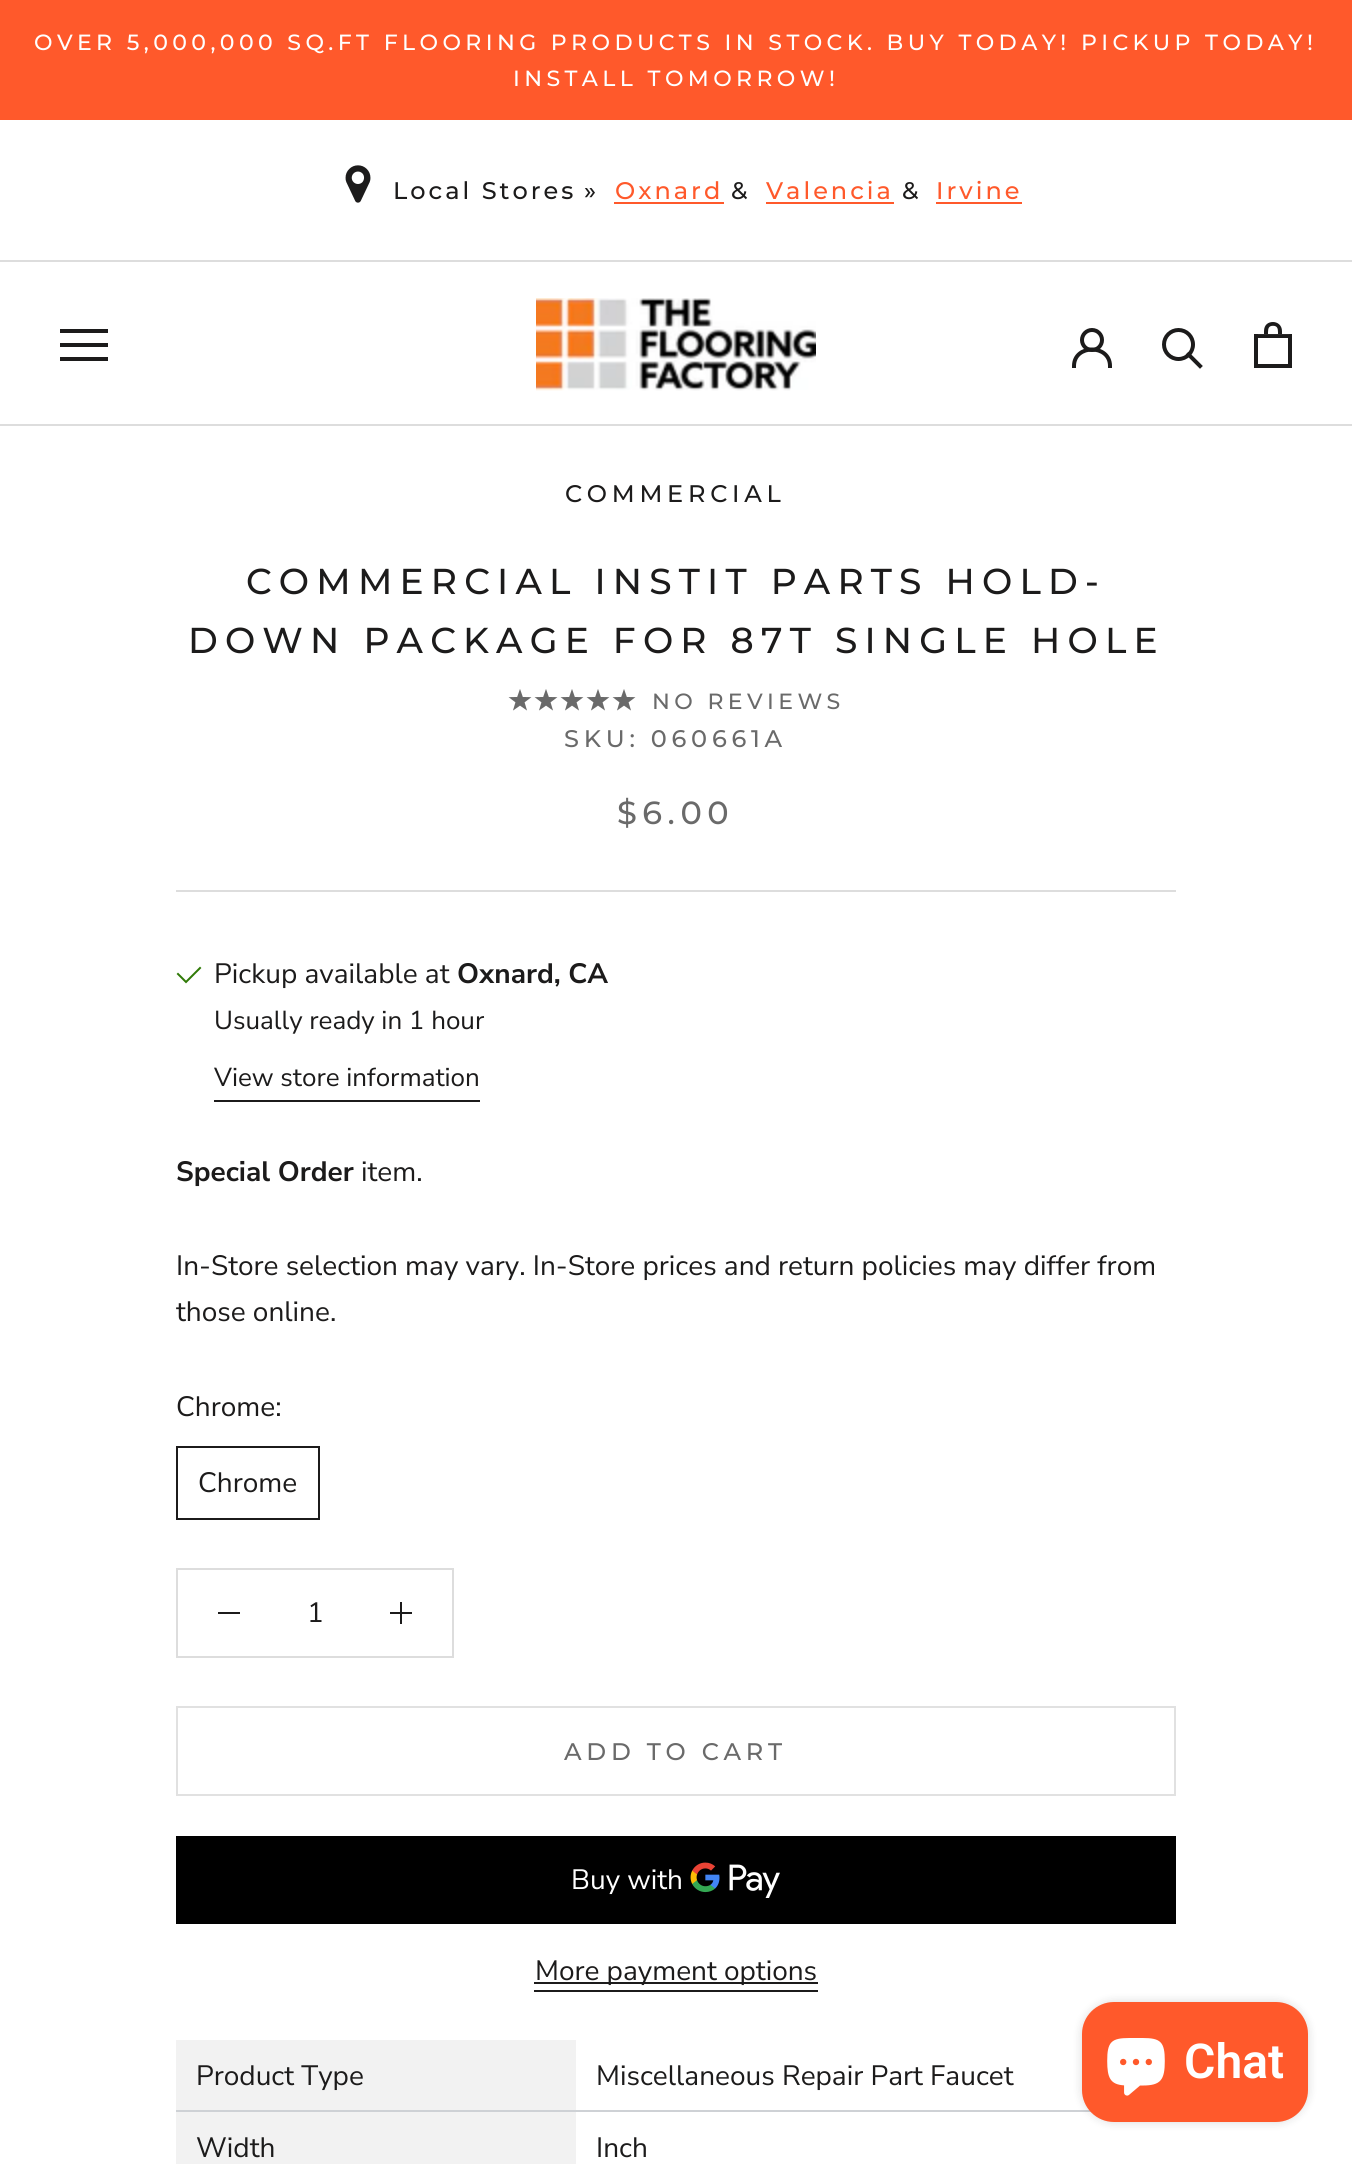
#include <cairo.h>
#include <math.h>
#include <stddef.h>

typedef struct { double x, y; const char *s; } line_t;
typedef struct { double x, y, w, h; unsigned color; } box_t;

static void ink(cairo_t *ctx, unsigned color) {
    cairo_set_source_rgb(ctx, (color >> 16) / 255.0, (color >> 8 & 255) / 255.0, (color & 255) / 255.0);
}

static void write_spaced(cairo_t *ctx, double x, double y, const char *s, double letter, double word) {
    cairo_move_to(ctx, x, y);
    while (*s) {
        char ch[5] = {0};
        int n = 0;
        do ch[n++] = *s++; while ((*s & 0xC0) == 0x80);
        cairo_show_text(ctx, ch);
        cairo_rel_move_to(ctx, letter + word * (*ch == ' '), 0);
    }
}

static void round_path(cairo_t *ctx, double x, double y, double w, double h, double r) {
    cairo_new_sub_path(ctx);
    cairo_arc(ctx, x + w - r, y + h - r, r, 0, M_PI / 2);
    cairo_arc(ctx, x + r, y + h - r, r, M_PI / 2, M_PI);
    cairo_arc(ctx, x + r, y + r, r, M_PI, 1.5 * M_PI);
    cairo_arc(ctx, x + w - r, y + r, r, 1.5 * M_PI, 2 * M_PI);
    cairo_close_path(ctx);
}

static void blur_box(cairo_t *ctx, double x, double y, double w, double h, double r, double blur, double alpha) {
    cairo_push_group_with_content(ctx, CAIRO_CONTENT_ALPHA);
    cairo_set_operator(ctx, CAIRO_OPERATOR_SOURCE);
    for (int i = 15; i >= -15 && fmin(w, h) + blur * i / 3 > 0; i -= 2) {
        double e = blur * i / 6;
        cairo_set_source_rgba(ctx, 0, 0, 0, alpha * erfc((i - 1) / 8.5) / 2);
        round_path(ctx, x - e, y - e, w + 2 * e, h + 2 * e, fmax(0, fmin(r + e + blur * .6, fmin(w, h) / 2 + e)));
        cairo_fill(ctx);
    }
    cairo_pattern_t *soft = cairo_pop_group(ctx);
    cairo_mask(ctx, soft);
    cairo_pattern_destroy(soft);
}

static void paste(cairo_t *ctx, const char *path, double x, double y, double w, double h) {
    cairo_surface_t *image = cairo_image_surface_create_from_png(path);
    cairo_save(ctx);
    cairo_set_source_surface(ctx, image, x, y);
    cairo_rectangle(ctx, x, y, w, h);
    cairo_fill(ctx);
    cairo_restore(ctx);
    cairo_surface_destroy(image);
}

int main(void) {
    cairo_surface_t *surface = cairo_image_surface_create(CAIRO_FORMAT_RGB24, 1352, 2164);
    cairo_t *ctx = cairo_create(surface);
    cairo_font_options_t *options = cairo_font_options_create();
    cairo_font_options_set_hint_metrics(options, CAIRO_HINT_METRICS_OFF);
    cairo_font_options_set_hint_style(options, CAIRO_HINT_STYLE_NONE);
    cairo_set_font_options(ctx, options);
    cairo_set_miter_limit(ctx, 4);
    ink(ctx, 0xFFFFFF);
    cairo_paint(ctx);
    ink(ctx, 0xFF592B);
    cairo_rectangle(ctx, 0, 0, 1352, 120);
    cairo_fill(ctx);
    cairo_select_font_face(ctx, "Montserrat Medium", CAIRO_FONT_SLANT_NORMAL, CAIRO_FONT_WEIGHT_NORMAL);
    cairo_set_font_size(ctx, 22);
    ink(ctx, 0xFFFFFF);
    write_spaced(ctx, 34, 50, "OVER 5,000,000 SQ.FT FLOORING PRODUCTS IN STOCK. BUY TODAY! PICKUP TODAY!", 4.4, 0);
    write_spaced(ctx, 513, 86, "INSTALL TOMORROW!", 4.4, 0);
    ink(ctx, 0xDDDDDD);
    cairo_rectangle(ctx, 0, 260, 1352, 2);
    cairo_fill(ctx);
    paste(ctx, "media/1.png", 345, 165, 26, 38);
    cairo_set_font_size(ctx, 24);
    ink(ctx, 0x1C1B1B);
    write_spaced(ctx, 393, 199, "Local Stores", 3, 0);
    write_spaced(ctx, 584, 199, "»", 3, 0);
    ink(ctx, 0xFF592B);
    write_spaced(ctx, 615, 199, "Oxnard", 3, 0);
    cairo_rectangle(ctx, 614, 202, 110, 2);
    cairo_fill(ctx);
    ink(ctx, 0x1C1B1B);
    write_spaced(ctx, 731, 199, "&", 3, 0);
    ink(ctx, 0xFF592B);
    write_spaced(ctx, 766, 199, "Valencia", 3, 0);
    cairo_rectangle(ctx, 766, 202, 128, 2);
    cairo_fill(ctx);
    ink(ctx, 0x1C1B1B);
    write_spaced(ctx, 902, 199, "&", 3, 0);
    ink(ctx, 0xFF592B);
    write_spaced(ctx, 936, 199, "Irvine", 3, 0);
    cairo_rectangle(ctx, 936, 202, 86, 2);
    cairo_fill(ctx);
    ink(ctx, 0xDDDDDD);
    cairo_rectangle(ctx, 0, 424, 1352, 2);
    cairo_fill(ctx);
    ink(ctx, 0x1C1B1B);
    cairo_new_path(ctx);
    cairo_move_to(ctx, 60, 361);
    cairo_line_to(ctx, 60, 357);
    cairo_line_to(ctx, 108, 357);
    cairo_line_to(ctx, 108, 361);
    cairo_close_path(ctx);
    cairo_move_to(ctx, 60, 343);
    cairo_line_to(ctx, 108, 343);
    cairo_line_to(ctx, 108, 347);
    cairo_line_to(ctx, 60, 347);
    cairo_close_path(ctx);
    cairo_move_to(ctx, 60, 329);
    cairo_line_to(ctx, 108, 329);
    cairo_line_to(ctx, 108, 333);
    cairo_line_to(ctx, 60, 333);
    cairo_close_path(ctx);
    cairo_fill(ctx);
    paste(ctx, "media/2.png", 536, 298, 280, 93);
    cairo_new_path(ctx);
    cairo_move_to(ctx, 1074, 366);
    cairo_curve_to(ctx, 1074, 344, 1110, 344, 1110, 366);
    cairo_set_line_width(ctx, 4);
    cairo_set_line_cap(ctx, CAIRO_LINE_CAP_SQUARE);
    cairo_stroke(ctx);
    cairo_arc(ctx, 1092, 340, 10, 0, 2 * M_PI);
    cairo_set_line_cap(ctx, CAIRO_LINE_CAP_BUTT);
    cairo_stroke(ctx);
    cairo_new_path(ctx);
    cairo_move_to(ctx, 1200, 366);
    cairo_line_to(ctx, 1188.5, 354.5);
    cairo_set_line_cap(ctx, CAIRO_LINE_CAP_SQUARE);
    cairo_stroke(ctx);
    cairo_arc(ctx, 1178.5, 344.5, 14.5, 0, 2 * M_PI);
    cairo_set_line_cap(ctx, CAIRO_LINE_CAP_BUTT);
    cairo_stroke(ctx);
    paste(ctx, "media/3.png", 1254, 322, 38, 46);
    ink(ctx, 0xDDDDDD);
    cairo_rectangle(ctx, 176, 890, 1000, 2);
    cairo_fill(ctx);
    ink(ctx, 0x1C1B1B);
    write_spaced(ctx, 565, 502, "COMMERCIAL", 4.75, 0);
    cairo_set_font_size(ctx, 36);
    write_spaced(ctx, 246, 594, "COMMERCIAL INSTIT PARTS HOLD-", 7.2, 0);
    write_spaced(ctx, 188, 653, "DOWN PACKAGE FOR 87T SINGLE HOLE", 7.2, 0);
    paste(ctx, "media/4.png", 508, 689, 24, 22);
    paste(ctx, "media/4.png", 534, 689, 24, 22);
    paste(ctx, "media/4.png", 560, 689, 24, 22);
    paste(ctx, "media/4.png", 586, 689, 24, 22);
    paste(ctx, "media/4.png", 612, 689, 24, 22);
    cairo_set_font_size(ctx, 22);
    ink(ctx, 0x6A6A6A);
    write_spaced(ctx, 652, 709, "NO REVIEWS", 4.4, 0);
    cairo_set_font_size(ctx, 24);
    write_spaced(ctx, 564, 747, "SKU: 060661A", 4.75, 0);
    cairo_set_font_size(ctx, 32);
    write_spaced(ctx, 617, 824, "$6.00", 5.5, 0);
    cairo_new_path(ctx);
    cairo_move_to(ctx, 178, 974);
    cairo_line_to(ctx, 186, 982);
    cairo_line_to(ctx, 200, 968);
    ink(ctx, 0x307A07);
    cairo_set_line_width(ctx, 2);
    cairo_set_line_cap(ctx, CAIRO_LINE_CAP_SQUARE);
    cairo_stroke(ctx);
    cairo_select_font_face(ctx, "Nunito Sans", CAIRO_FONT_SLANT_NORMAL, CAIRO_FONT_WEIGHT_NORMAL);
    cairo_set_font_size(ctx, 28);
    ink(ctx, 0x1C1B1B);
    cairo_move_to(ctx, 214, 983);
    cairo_show_text(ctx, "Pickup available at");
    cairo_select_font_face(ctx, "Nunito Sans", CAIRO_FONT_SLANT_NORMAL, CAIRO_FONT_WEIGHT_BOLD);
    cairo_move_to(ctx, 457, 983);
    cairo_show_text(ctx, "Oxnard, CA");
    cairo_select_font_face(ctx, "Nunito Sans", CAIRO_FONT_SLANT_NORMAL, CAIRO_FONT_WEIGHT_NORMAL);
    cairo_set_font_size(ctx, 26);
    cairo_move_to(ctx, 214, 1029);
    cairo_show_text(ctx, "Usually ready in 1 hour");
    cairo_move_to(ctx, 214, 1086);
    cairo_show_text(ctx, "View store information");
    cairo_rectangle(ctx, 214, 1100, 266, 2);
    cairo_fill(ctx);
    cairo_select_font_face(ctx, "Nunito Sans", CAIRO_FONT_SLANT_NORMAL, CAIRO_FONT_WEIGHT_BOLD);
    cairo_set_font_size(ctx, 28);
    cairo_move_to(ctx, 176, 1181);
    cairo_show_text(ctx, "Special Order");
    cairo_select_font_face(ctx, "Nunito Sans", CAIRO_FONT_SLANT_NORMAL, CAIRO_FONT_WEIGHT_NORMAL);
    {
        static const line_t items[] = {
            {361, 1181, "item."},
            {176, 1275, "In-Store selection may vary. In-Store prices and return policies may differ from"},
            {176, 1321, "those online."},
            {176, 1416, "Chrome:"},
        };
        for (size_t i = 0; i < sizeof items / sizeof *items; i++) {
            cairo_move_to(ctx, items[i].x, items[i].y);
            cairo_show_text(ctx, items[i].s);
        }
    }
    cairo_rectangle(ctx, 177, 1447, 142, 72);
    cairo_set_line_cap(ctx, CAIRO_LINE_CAP_BUTT);
    cairo_stroke(ctx);
    cairo_move_to(ctx, 198, 1492);
    cairo_show_text(ctx, "Chrome");
    cairo_rectangle(ctx, 177, 1569, 276, 88);
    ink(ctx, 0xDDDDDD);
    cairo_stroke(ctx);
    ink(ctx, 0x1C1B1B);
    cairo_rectangle(ctx, 218, 1612, 22, 2);
    cairo_fill(ctx);
    cairo_move_to(ctx, 307, 1622);
    cairo_show_text(ctx, "1");
    cairo_rectangle(ctx, 400, 1602, 2, 22);
    cairo_fill(ctx);
    cairo_rectangle(ctx, 390, 1612, 22, 2);
    cairo_fill(ctx);
    cairo_rectangle(ctx, 177, 1707, 998, 88);
    ink(ctx, 0xE1E1E1);
    cairo_stroke(ctx);
    cairo_select_font_face(ctx, "Montserrat Medium", CAIRO_FONT_SLANT_NORMAL, CAIRO_FONT_WEIGHT_NORMAL);
    cairo_set_font_size(ctx, 24);
    ink(ctx, 0x6A6A6A);
    write_spaced(ctx, 564, 1760, "ADD TO CART", 4.75, 0);
    ink(ctx, 0x000000);
    cairo_rectangle(ctx, 176, 1836, 1000, 88);
    cairo_fill(ctx);
    cairo_select_font_face(ctx, "Nunito Sans", CAIRO_FONT_SLANT_NORMAL, CAIRO_FONT_WEIGHT_NORMAL);
    cairo_set_font_size(ctx, 28);
    ink(ctx, 0xFFFFFF);
    cairo_move_to(ctx, 571, 1889);
    cairo_show_text(ctx, "Buy with");
    paste(ctx, "media/5.png", 690, 1862, 90, 36);
    ink(ctx, 0x1C1B1B);
    cairo_rectangle(ctx, 534, 1982, 284, 2);
    cairo_fill(ctx);
    cairo_move_to(ctx, 535, 1980);
    cairo_show_text(ctx, "More payment options");
    {
        static const box_t items[] = {
            {534, 1990, 284, 2, 0x1C1B1B},
            {176, 2110, 915, 2, 0xCED1D5},
            {176, 2040, 400, 70, 0xF2F2F2},
        };
        for (size_t i = 0; i < sizeof items / sizeof *items; i++) {
            ink(ctx, items[i].color);
            cairo_rectangle(ctx, items[i].x, items[i].y, items[i].w, items[i].h);
            cairo_fill(ctx);
        }
    }
    ink(ctx, 0x1C1B1B);
    cairo_move_to(ctx, 196, 2085);
    cairo_show_text(ctx, "Product Type");
    cairo_move_to(ctx, 596, 2085);
    cairo_show_text(ctx, "Miscellaneous Repair Part Faucet");
    ink(ctx, 0xF2F2F2);
    cairo_rectangle(ctx, 176, 2112, 400, 52);
    cairo_fill(ctx);
    ink(ctx, 0x1C1B1B);
    cairo_move_to(ctx, 196, 2157);
    cairo_show_text(ctx, "Width");
    cairo_move_to(ctx, 596, 2157);
    cairo_show_text(ctx, "Inch");
    ink(ctx, 0x000000);
    blur_box(ctx, 1082, 2002, 226, 120, 32, 5, 0.15);
    ink(ctx, 0xFF592B);
    round_path(ctx, 1082, 2002, 226, 120, 32);
    cairo_fill(ctx);
    paste(ctx, "media/6.png", 1107, 2038, 58, 58);
    cairo_select_font_face(ctx, "Roboto SemiBold", CAIRO_FONT_SLANT_NORMAL, CAIRO_FONT_WEIGHT_NORMAL);
    cairo_set_font_size(ctx, 48);
    ink(ctx, 0xFFFFFF);
    cairo_move_to(ctx, 1184, 2078);
    cairo_show_text(ctx, "Chat");
    cairo_surface_write_to_png(surface, "image.png");
    cairo_font_options_destroy(options);
    cairo_destroy(ctx);
    cairo_surface_destroy(surface);
    return 0;
}
